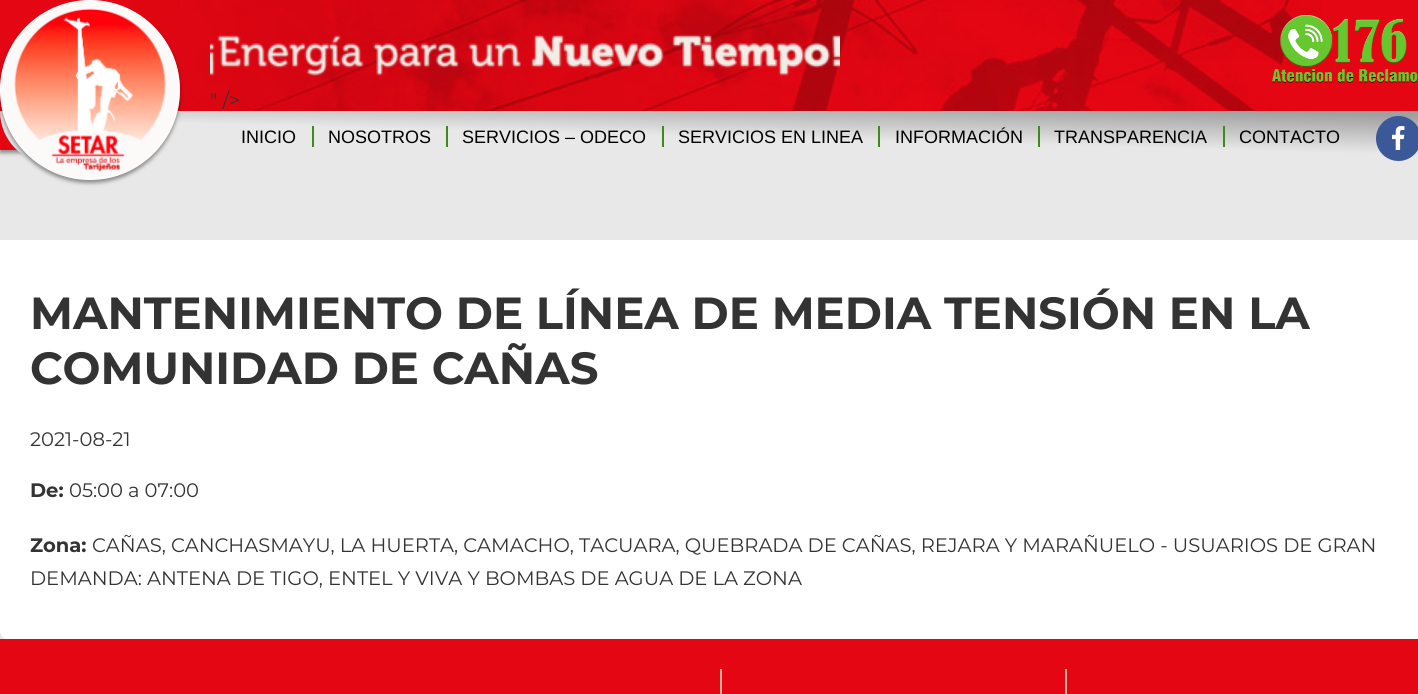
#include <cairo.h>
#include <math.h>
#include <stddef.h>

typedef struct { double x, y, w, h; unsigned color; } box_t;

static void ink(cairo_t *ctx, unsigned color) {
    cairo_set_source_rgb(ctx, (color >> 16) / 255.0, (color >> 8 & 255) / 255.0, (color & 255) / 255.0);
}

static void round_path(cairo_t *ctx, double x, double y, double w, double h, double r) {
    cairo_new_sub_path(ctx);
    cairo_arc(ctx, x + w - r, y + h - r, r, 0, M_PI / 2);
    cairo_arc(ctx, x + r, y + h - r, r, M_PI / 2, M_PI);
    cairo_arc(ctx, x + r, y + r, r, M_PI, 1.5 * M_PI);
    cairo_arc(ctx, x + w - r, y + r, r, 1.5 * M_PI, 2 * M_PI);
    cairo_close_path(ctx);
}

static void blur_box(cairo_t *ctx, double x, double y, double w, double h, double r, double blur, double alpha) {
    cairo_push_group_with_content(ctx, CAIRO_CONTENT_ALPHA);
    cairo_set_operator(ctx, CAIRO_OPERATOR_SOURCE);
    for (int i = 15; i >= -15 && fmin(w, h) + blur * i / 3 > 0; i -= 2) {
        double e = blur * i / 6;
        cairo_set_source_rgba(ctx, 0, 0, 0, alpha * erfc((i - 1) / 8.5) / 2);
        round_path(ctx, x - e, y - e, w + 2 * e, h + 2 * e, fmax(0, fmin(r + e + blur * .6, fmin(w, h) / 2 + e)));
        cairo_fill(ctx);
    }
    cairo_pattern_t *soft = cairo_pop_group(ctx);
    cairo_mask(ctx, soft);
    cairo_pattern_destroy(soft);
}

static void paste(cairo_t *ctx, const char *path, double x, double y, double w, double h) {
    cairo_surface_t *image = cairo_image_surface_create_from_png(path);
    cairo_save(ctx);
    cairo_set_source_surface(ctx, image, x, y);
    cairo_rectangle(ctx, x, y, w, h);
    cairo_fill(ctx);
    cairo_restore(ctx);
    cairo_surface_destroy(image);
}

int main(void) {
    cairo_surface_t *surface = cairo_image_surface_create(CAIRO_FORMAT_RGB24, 1418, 694);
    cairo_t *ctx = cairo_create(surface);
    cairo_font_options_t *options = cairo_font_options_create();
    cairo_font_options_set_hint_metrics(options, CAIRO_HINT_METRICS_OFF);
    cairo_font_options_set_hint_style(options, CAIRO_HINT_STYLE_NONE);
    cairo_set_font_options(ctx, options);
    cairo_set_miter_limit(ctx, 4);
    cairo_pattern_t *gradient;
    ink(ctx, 0xE9E8E8);
    cairo_paint(ctx);
    ink(ctx, 0x000000);
    blur_box(ctx, 0, 3, 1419, 150, 0, 2, 0.4);
    ink(ctx, 0xE40613);
    cairo_rectangle(ctx, 0, 0, 1418, 150);
    cairo_fill(ctx);
    paste(ctx, "media/1.png", 128, 0, 1194, 111);
    ink(ctx, 0xE9E8E8);
    cairo_new_path(ctx);
    cairo_move_to(ctx, 0, 111);
    cairo_line_to(ctx, 1413.5, 111);
    cairo_curve_to(ctx, 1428, 111, 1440, 123, 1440, 137.5);
    cairo_line_to(ctx, 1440, 164);
    cairo_line_to(ctx, 53, 164);
    cairo_curve_to(ctx, 23.5, 164, 0, 140.5, 0, 111);
    cairo_close_path(ctx);
    cairo_fill(ctx);
    gradient = cairo_pattern_create_linear(721, 98, 719, 176);
    cairo_pattern_add_color_stop_rgba(gradient, 0, 0.627, 0.627, 0.627, 1);
    cairo_pattern_add_color_stop_rgba(gradient, 0.5, 0.627, 0.627, 0.627, 0);
    cairo_set_source(ctx, gradient);
    cairo_pattern_destroy(gradient);
    cairo_new_path(ctx);
    cairo_move_to(ctx, 0, 111);
    cairo_line_to(ctx, 1413.5, 111);
    cairo_curve_to(ctx, 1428, 111, 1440, 123, 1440, 137.5);
    cairo_line_to(ctx, 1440, 164);
    cairo_line_to(ctx, 53, 164);
    cairo_curve_to(ctx, 23.5, 164, 0, 140.5, 0, 111);
    cairo_close_path(ctx);
    cairo_fill(ctx);
    ink(ctx, 0x000000);
    blur_box(ctx, 0, 3, 180, 180, 90, 2, 0.4);
    ink(ctx, 0xFFFFFF);
    cairo_arc(ctx, 90, 90, 90, 0, 2 * M_PI);
    cairo_fill(ctx);
    paste(ctx, "media/2.png", 0, 0, 180, 179);
    paste(ctx, "media/3.png", 1272, 15, 146, 68);
    paste(ctx, "media/4.png", 210, 34, 630, 42);
    cairo_select_font_face(ctx, "Montserrat", CAIRO_FONT_SLANT_NORMAL, CAIRO_FONT_WEIGHT_NORMAL);
    cairo_set_font_size(ctx, 19.5);
    ink(ctx, 0x333333);
    cairo_move_to(ctx, 210, 107);
    cairo_show_text(ctx, "\" />");
    cairo_select_font_face(ctx, "Liberation Sans", CAIRO_FONT_SLANT_NORMAL, CAIRO_FONT_WEIGHT_NORMAL);
    cairo_set_font_size(ctx, 18);
    ink(ctx, 0x000000);
    cairo_move_to(ctx, 241, 143);
    cairo_show_text(ctx, "INICIO");
    cairo_move_to(ctx, 328, 143);
    cairo_show_text(ctx, "NOSOTROS");
    ink(ctx, 0x3C8C1C);
    cairo_rectangle(ctx, 312, 126, 2, 21);
    cairo_fill(ctx);
    ink(ctx, 0x000000);
    cairo_move_to(ctx, 462, 143);
    cairo_show_text(ctx, "SERVICIOS – ODECO");
    ink(ctx, 0x3C8C1C);
    cairo_rectangle(ctx, 446, 126, 2, 21);
    cairo_fill(ctx);
    ink(ctx, 0x000000);
    cairo_move_to(ctx, 678, 143);
    cairo_show_text(ctx, "SERVICIOS EN LINEA");
    ink(ctx, 0x3C8C1C);
    cairo_rectangle(ctx, 662, 126, 2, 21);
    cairo_fill(ctx);
    ink(ctx, 0x000000);
    cairo_move_to(ctx, 895, 143);
    cairo_show_text(ctx, "INFORMACIÓN");
    ink(ctx, 0x3C8C1C);
    cairo_rectangle(ctx, 878, 126, 2, 21);
    cairo_fill(ctx);
    ink(ctx, 0x000000);
    cairo_move_to(ctx, 1054, 143);
    cairo_show_text(ctx, "TRANSPARENCIA");
    ink(ctx, 0x3C8C1C);
    cairo_rectangle(ctx, 1038, 126, 2, 21);
    cairo_fill(ctx);
    ink(ctx, 0x000000);
    cairo_move_to(ctx, 1239, 143);
    cairo_show_text(ctx, "CONTACTO");
    ink(ctx, 0x3C8C1C);
    cairo_rectangle(ctx, 1223, 126, 2, 21);
    cairo_fill(ctx);
    ink(ctx, 0x3B5998);
    cairo_arc(ctx, 1398.5, 138.5, 22.5, 0, 2 * M_PI);
    cairo_fill(ctx);
    paste(ctx, "media/5.png", 1392, 126, 13, 24);
    ink(ctx, 0xFFFFFF);
    cairo_new_path(ctx);
    cairo_move_to(ctx, 0, 240);
    cairo_line_to(ctx, 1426, 240);
    cairo_line_to(ctx, 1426, 631);
    cairo_curve_to(ctx, 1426, 635.5, 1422.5, 639, 1418, 639);
    cairo_line_to(ctx, 8, 639);
    cairo_curve_to(ctx, 3.5, 639, 0, 635.5, 0, 631);
    cairo_close_path(ctx);
    cairo_fill(ctx);
    cairo_select_font_face(ctx, "Montserrat", CAIRO_FONT_SLANT_NORMAL, CAIRO_FONT_WEIGHT_BOLD);
    cairo_set_font_size(ctx, 45);
    ink(ctx, 0x333333);
    cairo_move_to(ctx, 30, 329);
    cairo_show_text(ctx, "MANTENIMIENTO DE LÍNEA DE MEDIA TENSIÓN EN LA");
    cairo_move_to(ctx, 30, 384);
    cairo_show_text(ctx, "COMUNIDAD DE CAÑAS");
    cairo_select_font_face(ctx, "Montserrat", CAIRO_FONT_SLANT_NORMAL, CAIRO_FONT_WEIGHT_NORMAL);
    cairo_set_font_size(ctx, 19.5);
    cairo_move_to(ctx, 30, 446);
    cairo_show_text(ctx, "2021-08-21");
    cairo_select_font_face(ctx, "Montserrat", CAIRO_FONT_SLANT_NORMAL, CAIRO_FONT_WEIGHT_BOLD);
    cairo_move_to(ctx, 30, 497);
    cairo_show_text(ctx, "De:");
    cairo_select_font_face(ctx, "Montserrat", CAIRO_FONT_SLANT_NORMAL, CAIRO_FONT_WEIGHT_NORMAL);
    cairo_move_to(ctx, 69, 497);
    cairo_show_text(ctx, "05:00 a 07:00");
    cairo_select_font_face(ctx, "Montserrat", CAIRO_FONT_SLANT_NORMAL, CAIRO_FONT_WEIGHT_BOLD);
    cairo_move_to(ctx, 30, 552);
    cairo_show_text(ctx, "Zona:");
    cairo_select_font_face(ctx, "Montserrat", CAIRO_FONT_SLANT_NORMAL, CAIRO_FONT_WEIGHT_NORMAL);
    cairo_move_to(ctx, 92, 552);
    cairo_show_text(ctx, "CAÑAS, CANCHASMAYU, LA HUERTA, CAMACHO, TACUARA, QUEBRADA DE CAÑAS, REJARA Y MARAÑUELO - USUARIOS DE GRAN");
    cairo_move_to(ctx, 30, 585);
    cairo_show_text(ctx, "DEMANDA: ANTENA DE TIGO, ENTEL Y VIVA Y BOMBAS DE AGUA DE LA ZONA");
    {
        static const box_t items[] = {
            {0, 639, 1418, 55, 0xE40613},
            {720, 669, 2, 25, 0xC8B199},
            {1065, 669, 2, 25, 0xC8B199},
        };
        for (size_t i = 0; i < sizeof items / sizeof *items; i++) {
            ink(ctx, items[i].color);
            cairo_rectangle(ctx, items[i].x, items[i].y, items[i].w, items[i].h);
            cairo_fill(ctx);
        }
    }
    cairo_surface_write_to_png(surface, "image.png");
    cairo_font_options_destroy(options);
    cairo_destroy(ctx);
    cairo_surface_destroy(surface);
    return 0;
}
